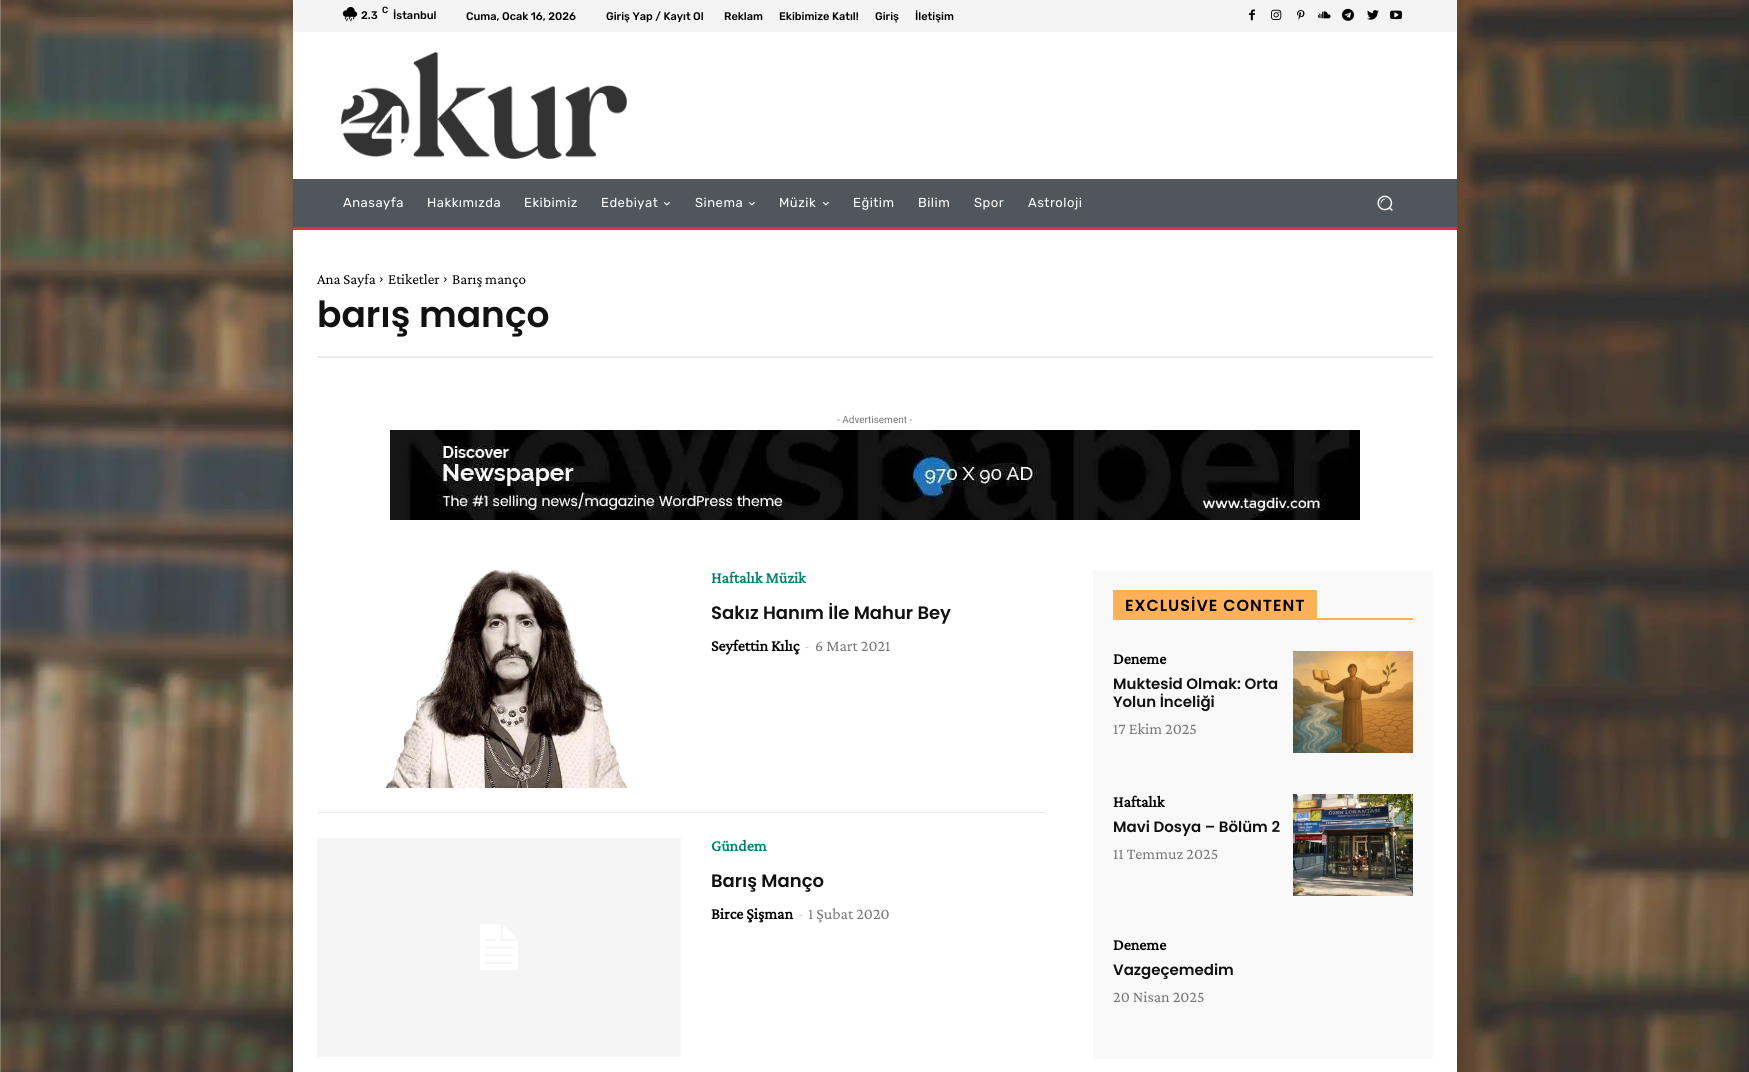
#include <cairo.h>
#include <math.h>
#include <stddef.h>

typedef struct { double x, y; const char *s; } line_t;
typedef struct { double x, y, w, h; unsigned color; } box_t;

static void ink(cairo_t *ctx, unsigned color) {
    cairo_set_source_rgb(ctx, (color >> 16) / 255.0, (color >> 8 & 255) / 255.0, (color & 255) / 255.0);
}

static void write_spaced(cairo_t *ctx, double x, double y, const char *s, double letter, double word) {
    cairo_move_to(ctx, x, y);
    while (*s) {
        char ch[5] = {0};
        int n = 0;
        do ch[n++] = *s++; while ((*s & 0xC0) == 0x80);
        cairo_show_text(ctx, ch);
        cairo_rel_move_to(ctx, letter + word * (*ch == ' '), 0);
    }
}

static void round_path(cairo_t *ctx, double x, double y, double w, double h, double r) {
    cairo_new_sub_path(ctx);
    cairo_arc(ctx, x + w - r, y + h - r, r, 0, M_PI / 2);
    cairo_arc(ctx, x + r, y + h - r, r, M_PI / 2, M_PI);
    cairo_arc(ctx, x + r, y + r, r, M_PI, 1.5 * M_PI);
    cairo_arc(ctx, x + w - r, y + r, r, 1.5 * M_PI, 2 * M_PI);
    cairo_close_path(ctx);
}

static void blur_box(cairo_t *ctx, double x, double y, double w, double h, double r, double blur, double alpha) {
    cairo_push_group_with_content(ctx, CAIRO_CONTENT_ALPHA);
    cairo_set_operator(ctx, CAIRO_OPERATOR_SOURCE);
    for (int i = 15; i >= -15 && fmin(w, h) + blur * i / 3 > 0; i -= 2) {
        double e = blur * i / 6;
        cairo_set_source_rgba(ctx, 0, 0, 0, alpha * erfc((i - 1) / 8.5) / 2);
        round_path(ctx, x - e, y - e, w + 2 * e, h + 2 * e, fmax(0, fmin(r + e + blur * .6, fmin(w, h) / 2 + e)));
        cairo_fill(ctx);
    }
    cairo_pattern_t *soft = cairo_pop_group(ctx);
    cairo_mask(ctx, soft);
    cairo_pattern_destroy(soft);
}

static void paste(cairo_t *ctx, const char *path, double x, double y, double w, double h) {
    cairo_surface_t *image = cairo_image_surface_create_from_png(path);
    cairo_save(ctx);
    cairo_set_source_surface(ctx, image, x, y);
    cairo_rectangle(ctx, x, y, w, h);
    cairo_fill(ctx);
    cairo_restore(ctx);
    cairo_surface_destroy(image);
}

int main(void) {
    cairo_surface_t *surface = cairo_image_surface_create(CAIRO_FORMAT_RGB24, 1749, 1072);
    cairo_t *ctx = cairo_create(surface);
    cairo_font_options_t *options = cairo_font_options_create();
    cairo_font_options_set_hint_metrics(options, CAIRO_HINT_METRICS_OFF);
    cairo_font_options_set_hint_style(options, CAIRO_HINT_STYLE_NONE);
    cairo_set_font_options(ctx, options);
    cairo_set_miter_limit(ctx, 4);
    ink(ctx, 0xFFFFFF);
    cairo_paint(ctx);
    paste(ctx, "media/1.png", 0, 0, 1749, 1072);
    ink(ctx, 0x000000);
    blur_box(ctx, 290, 237, 1170, 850, 0, 5, 0.12);
    ink(ctx, 0xFFFFFF);
    cairo_rectangle(ctx, 293, 240, 1164, 832);
    cairo_fill(ctx);
    ink(ctx, 0x000000);
    blur_box(ctx, 290, -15, 1170, 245, 0, 5, 0.12);
    ink(ctx, 0xF4F4F4);
    cairo_rectangle(ctx, 293, 0, 1164, 32);
    cairo_fill(ctx);
    paste(ctx, "media/2.png", 342, 6, 16, 16);
    cairo_select_font_face(ctx, "Rubik Medium", CAIRO_FONT_SLANT_NORMAL, CAIRO_FONT_WEIGHT_NORMAL);
    cairo_set_font_size(ctx, 9);
    ink(ctx, 0x000000);
    cairo_move_to(ctx, 382, 13);
    cairo_show_text(ctx, "C");
    cairo_set_font_size(ctx, 11);
    {
        static const line_t items[] = {
            {361, 19, "2.3"},
            {393, 19, "İstanbul"},
            {466, 20, "Cuma, Ocak 16, 2026"},
            {606, 20, "Giriş Yap / Kayıt Ol"},
            {724, 20, "Reklam"},
            {779, 20, "Ekibimize Katıl!"},
            {875, 20, "Giriş"},
            {915, 20, "İletişim"},
        };
        for (size_t i = 0; i < sizeof items / sizeof *items; i++) {
            cairo_move_to(ctx, items[i].x, items[i].y);
            cairo_show_text(ctx, items[i].s);
        }
    }
    paste(ctx, "media/3.png", 1249, 9, 6, 12);
    paste(ctx, "media/4.png", 1271, 9, 11, 11);
    paste(ctx, "media/5.png", 1297, 10, 8, 10);
    paste(ctx, "media/6.png", 1318, 11, 13, 8);
    paste(ctx, "media/7.png", 1342, 8, 12, 13);
    paste(ctx, "media/8.png", 1367, 10, 12, 10);
    paste(ctx, "media/9.png", 1390, 10, 12, 10);
    ink(ctx, 0xFFFFFF);
    cairo_rectangle(ctx, 293, 32, 1164, 208);
    cairo_fill(ctx);
    paste(ctx, "media/10.png", 341, 52, 286, 107);
    ink(ctx, 0x4F575D);
    cairo_rectangle(ctx, 293, 179, 1164, 48);
    cairo_fill(ctx);
    cairo_select_font_face(ctx, "Rubik", CAIRO_FONT_SLANT_NORMAL, CAIRO_FONT_WEIGHT_NORMAL);
    cairo_set_font_size(ctx, 13);
    ink(ctx, 0xFFFFFF);
    {
        static const line_t items[] = {
            {343, 207, "Anasayfa"},
            {427, 207, "Hakkımızda"},
            {524, 207, "Ekibimiz"},
            {601, 207, "Edebiyat"},
        };
        for (size_t i = 0; i < sizeof items / sizeof *items; i++) {
            write_spaced(ctx, items[i].x, items[i].y, items[i].s, 0.5, 0);
        }
    }
    paste(ctx, "media/11.png", 664, 202, 6, 4);
    write_spaced(ctx, 695, 207, "Sinema", 0.5, 0);
    paste(ctx, "media/11.png", 749, 202, 6, 4);
    write_spaced(ctx, 779, 207, "Müzik", 0.5, 0);
    paste(ctx, "media/11.png", 823, 202, 6, 4);
    {
        static const line_t items[] = {
            {853, 207, "Eğitim"},
            {918, 207, "Bilim"},
            {974, 207, "Spor"},
            {1028, 207, "Astroloji"},
        };
        for (size_t i = 0; i < sizeof items / sizeof *items; i++) {
            write_spaced(ctx, items[i].x, items[i].y, items[i].s, 0.5, 0);
        }
    }
    paste(ctx, "media/12.png", 1377, 195, 16, 16);
    ink(ctx, 0xDD3333);
    cairo_rectangle(ctx, 293, 227, 1164, 3);
    cairo_fill(ctx);
    cairo_select_font_face(ctx, "Crimson Pro", CAIRO_FONT_SLANT_NORMAL, CAIRO_FONT_WEIGHT_NORMAL);
    cairo_set_font_size(ctx, 15);
    ink(ctx, 0x000000);
    cairo_move_to(ctx, 317, 284);
    cairo_show_text(ctx, "Ana Sayfa");
    paste(ctx, "media/13.png", 380, 277, 3, 5);
    cairo_move_to(ctx, 388, 284);
    cairo_show_text(ctx, "Etiketler");
    paste(ctx, "media/13.png", 444, 277, 3, 5);
    cairo_move_to(ctx, 452, 284);
    cairo_show_text(ctx, "Barış manço");
    cairo_select_font_face(ctx, "Poppins SemiBold", CAIRO_FONT_SLANT_NORMAL, CAIRO_FONT_WEIGHT_NORMAL);
    cairo_set_font_size(ctx, 36);
    ink(ctx, 0x111111);
    cairo_move_to(ctx, 317, 327);
    cairo_show_text(ctx, "barış manço");
    ink(ctx, 0xEBEBEB);
    cairo_rectangle(ctx, 317, 356, 1116, 2);
    cairo_fill(ctx);
    cairo_select_font_face(ctx, "Roboto", CAIRO_FONT_SLANT_NORMAL, CAIRO_FONT_WEIGHT_NORMAL);
    cairo_set_font_size(ctx, 10);
    ink(ctx, 0x767676);
    cairo_move_to(ctx, 837, 423);
    cairo_show_text(ctx, "- Advertisement -");
    paste(ctx, "media/14.png", 390, 430, 970, 90);
    paste(ctx, "media/15.png", 385, 570, 245, 218);
    cairo_select_font_face(ctx, "Crimson Pro", CAIRO_FONT_SLANT_NORMAL, CAIRO_FONT_WEIGHT_BOLD);
    cairo_set_font_size(ctx, 16);
    ink(ctx, 0x00846B);
    cairo_move_to(ctx, 711, 583);
    cairo_show_text(ctx, "Haftalık Müzik");
    cairo_select_font_face(ctx, "Poppins SemiBold", CAIRO_FONT_SLANT_NORMAL, CAIRO_FONT_WEIGHT_NORMAL);
    cairo_set_font_size(ctx, 18);
    ink(ctx, 0x111111);
    cairo_move_to(ctx, 711, 619);
    cairo_show_text(ctx, "Sakız Hanım İle Mahur Bey");
    cairo_select_font_face(ctx, "Crimson Pro", CAIRO_FONT_SLANT_NORMAL, CAIRO_FONT_WEIGHT_BOLD);
    cairo_set_font_size(ctx, 16);
    ink(ctx, 0x000000);
    cairo_move_to(ctx, 711, 651);
    cairo_show_text(ctx, "Seyfettin Kılıç");
    cairo_select_font_face(ctx, "Crimson Pro", CAIRO_FONT_SLANT_NORMAL, CAIRO_FONT_WEIGHT_NORMAL);
    ink(ctx, 0xCCCCCC);
    cairo_move_to(ctx, 804, 651);
    cairo_show_text(ctx, "-");
    ink(ctx, 0x767676);
    cairo_move_to(ctx, 815, 651);
    cairo_show_text(ctx, "6 Mart 2021");
    ink(ctx, 0xEAEAEA);
    cairo_rectangle(ctx, 317, 812, 728, 1);
    cairo_fill(ctx);
    paste(ctx, "media/16.png", 317, 838, 364, 219);
    cairo_select_font_face(ctx, "Crimson Pro", CAIRO_FONT_SLANT_NORMAL, CAIRO_FONT_WEIGHT_BOLD);
    ink(ctx, 0x00846B);
    cairo_move_to(ctx, 711, 851);
    cairo_show_text(ctx, "Gündem");
    cairo_select_font_face(ctx, "Poppins SemiBold", CAIRO_FONT_SLANT_NORMAL, CAIRO_FONT_WEIGHT_NORMAL);
    cairo_set_font_size(ctx, 18);
    ink(ctx, 0x111111);
    cairo_move_to(ctx, 711, 887);
    cairo_show_text(ctx, "Barış Manço");
    cairo_select_font_face(ctx, "Crimson Pro", CAIRO_FONT_SLANT_NORMAL, CAIRO_FONT_WEIGHT_BOLD);
    cairo_set_font_size(ctx, 16);
    ink(ctx, 0x000000);
    cairo_move_to(ctx, 711, 919);
    cairo_show_text(ctx, "Birce Şişman");
    cairo_select_font_face(ctx, "Crimson Pro", CAIRO_FONT_SLANT_NORMAL, CAIRO_FONT_WEIGHT_NORMAL);
    ink(ctx, 0xCCCCCC);
    cairo_move_to(ctx, 798, 919);
    cairo_show_text(ctx, "-");
    ink(ctx, 0x767676);
    cairo_move_to(ctx, 808, 919);
    cairo_show_text(ctx, "1 Şubat 2020");
    {
        static const box_t items[] = {
            {1093, 570, 340, 489, 0xF9F9F9},
            {1113, 618, 300, 2, 0xFFB159},
            {1113, 590, 204, 28, 0xFFB159},
        };
        for (size_t i = 0; i < sizeof items / sizeof *items; i++) {
            ink(ctx, items[i].color);
            cairo_rectangle(ctx, items[i].x, items[i].y, items[i].w, items[i].h);
            cairo_fill(ctx);
        }
    }
    cairo_select_font_face(ctx, "Poppins SemiBold", CAIRO_FONT_SLANT_NORMAL, CAIRO_FONT_WEIGHT_NORMAL);
    ink(ctx, 0x000000);
    write_spaced(ctx, 1125, 611, "EXCLUSİVE CONTENT", 1, 0);
    cairo_select_font_face(ctx, "Crimson Pro", CAIRO_FONT_SLANT_NORMAL, CAIRO_FONT_WEIGHT_BOLD);
    cairo_move_to(ctx, 1113, 664);
    cairo_show_text(ctx, "Deneme");
    cairo_select_font_face(ctx, "Poppins SemiBold", CAIRO_FONT_SLANT_NORMAL, CAIRO_FONT_WEIGHT_NORMAL);
    cairo_set_font_size(ctx, 15);
    ink(ctx, 0x111111);
    cairo_move_to(ctx, 1113, 689);
    cairo_show_text(ctx, "Muktesid Olmak: Orta");
    cairo_move_to(ctx, 1113, 707);
    cairo_show_text(ctx, "Yolun İnceliği");
    cairo_select_font_face(ctx, "Crimson Pro", CAIRO_FONT_SLANT_NORMAL, CAIRO_FONT_WEIGHT_NORMAL);
    cairo_set_font_size(ctx, 16);
    ink(ctx, 0x767676);
    cairo_move_to(ctx, 1113, 734);
    cairo_show_text(ctx, "17 Ekim 2025");
    paste(ctx, "media/17.png", 1293, 651, 120, 102);
    cairo_select_font_face(ctx, "Crimson Pro", CAIRO_FONT_SLANT_NORMAL, CAIRO_FONT_WEIGHT_BOLD);
    ink(ctx, 0x000000);
    cairo_move_to(ctx, 1113, 807);
    cairo_show_text(ctx, "Haftalık");
    cairo_select_font_face(ctx, "Poppins SemiBold", CAIRO_FONT_SLANT_NORMAL, CAIRO_FONT_WEIGHT_NORMAL);
    cairo_set_font_size(ctx, 15);
    ink(ctx, 0x111111);
    cairo_move_to(ctx, 1113, 832);
    cairo_show_text(ctx, "Mavi Dosya – Bölüm 2");
    cairo_select_font_face(ctx, "Crimson Pro", CAIRO_FONT_SLANT_NORMAL, CAIRO_FONT_WEIGHT_NORMAL);
    cairo_set_font_size(ctx, 16);
    ink(ctx, 0x767676);
    cairo_move_to(ctx, 1113, 859);
    cairo_show_text(ctx, "11 Temmuz 2025");
    paste(ctx, "media/18.png", 1293, 794, 120, 102);
    cairo_select_font_face(ctx, "Crimson Pro", CAIRO_FONT_SLANT_NORMAL, CAIRO_FONT_WEIGHT_BOLD);
    ink(ctx, 0x000000);
    cairo_move_to(ctx, 1113, 950);
    cairo_show_text(ctx, "Deneme");
    cairo_select_font_face(ctx, "Poppins SemiBold", CAIRO_FONT_SLANT_NORMAL, CAIRO_FONT_WEIGHT_NORMAL);
    cairo_set_font_size(ctx, 15);
    ink(ctx, 0x111111);
    cairo_move_to(ctx, 1113, 975);
    cairo_show_text(ctx, "Vazgeçemedim");
    cairo_select_font_face(ctx, "Crimson Pro", CAIRO_FONT_SLANT_NORMAL, CAIRO_FONT_WEIGHT_NORMAL);
    cairo_set_font_size(ctx, 16);
    ink(ctx, 0x767676);
    cairo_move_to(ctx, 1113, 1002);
    cairo_show_text(ctx, "20 Nisan 2025");
    cairo_surface_write_to_png(surface, "image.png");
    cairo_font_options_destroy(options);
    cairo_destroy(ctx);
    cairo_surface_destroy(surface);
    return 0;
}
